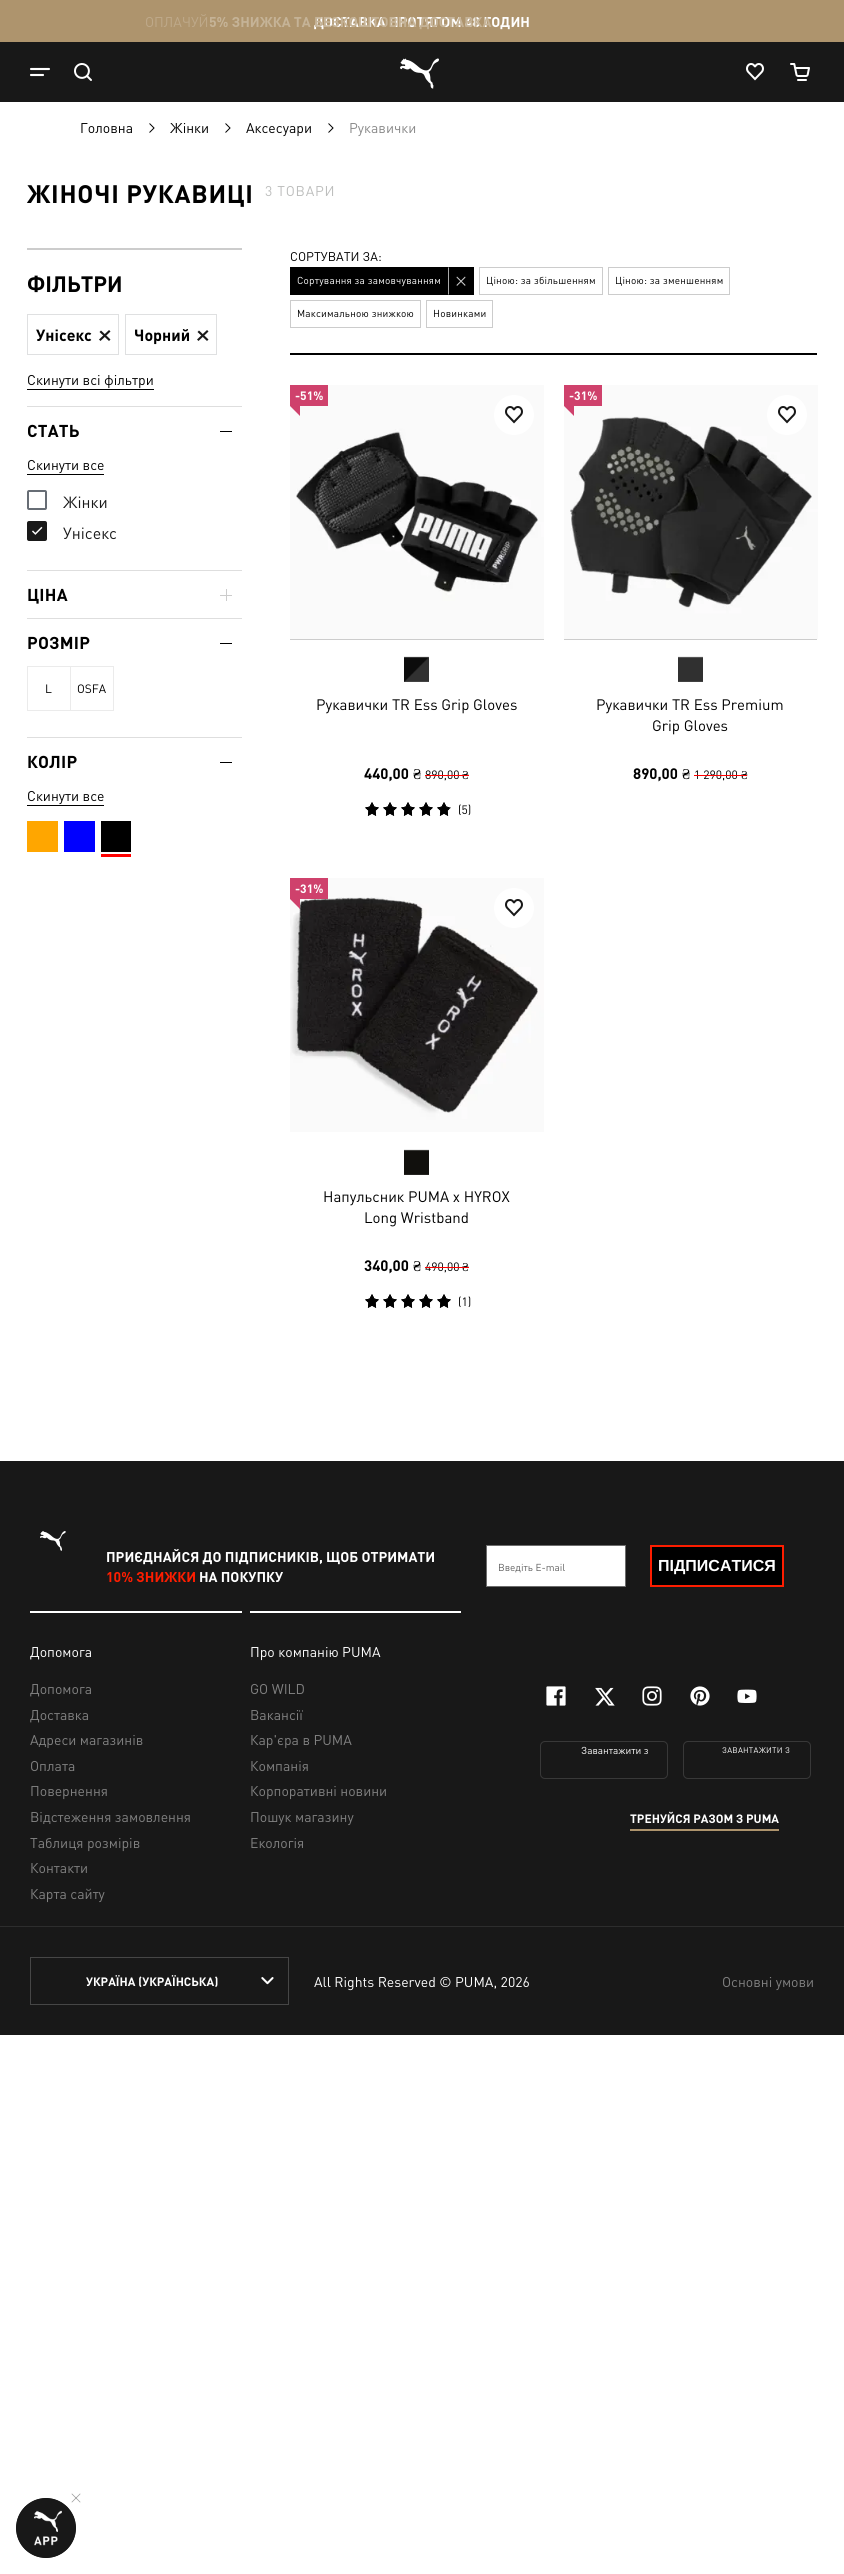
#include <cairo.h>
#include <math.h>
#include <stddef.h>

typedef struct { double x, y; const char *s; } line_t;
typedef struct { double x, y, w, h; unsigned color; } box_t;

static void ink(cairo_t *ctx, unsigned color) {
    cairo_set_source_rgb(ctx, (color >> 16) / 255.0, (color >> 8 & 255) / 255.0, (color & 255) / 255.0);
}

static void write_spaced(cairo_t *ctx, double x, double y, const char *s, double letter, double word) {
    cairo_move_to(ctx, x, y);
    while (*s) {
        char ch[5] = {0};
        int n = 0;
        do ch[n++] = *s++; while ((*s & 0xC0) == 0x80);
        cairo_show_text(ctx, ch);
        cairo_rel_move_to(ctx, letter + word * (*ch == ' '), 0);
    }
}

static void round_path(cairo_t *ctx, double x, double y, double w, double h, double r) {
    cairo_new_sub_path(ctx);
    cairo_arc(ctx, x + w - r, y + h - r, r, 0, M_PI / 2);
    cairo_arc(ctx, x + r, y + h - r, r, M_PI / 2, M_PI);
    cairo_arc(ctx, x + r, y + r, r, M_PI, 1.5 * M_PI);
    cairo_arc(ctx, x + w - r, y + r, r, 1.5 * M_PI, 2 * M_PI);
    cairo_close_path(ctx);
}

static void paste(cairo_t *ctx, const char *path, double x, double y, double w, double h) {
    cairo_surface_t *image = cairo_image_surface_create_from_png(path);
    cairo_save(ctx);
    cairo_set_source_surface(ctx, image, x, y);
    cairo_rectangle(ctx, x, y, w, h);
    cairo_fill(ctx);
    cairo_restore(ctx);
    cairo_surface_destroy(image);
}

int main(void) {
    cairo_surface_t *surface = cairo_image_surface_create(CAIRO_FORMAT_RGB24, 844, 2574);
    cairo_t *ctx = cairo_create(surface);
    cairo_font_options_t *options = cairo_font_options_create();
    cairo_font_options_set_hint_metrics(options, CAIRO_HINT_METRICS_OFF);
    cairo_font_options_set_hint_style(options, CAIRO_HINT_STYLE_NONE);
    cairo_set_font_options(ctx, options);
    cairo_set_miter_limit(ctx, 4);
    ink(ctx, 0xFFFFFF);
    cairo_paint(ctx);
    ink(ctx, 0xAE946D);
    cairo_rectangle(ctx, 0, 0, 844, 42);
    cairo_fill(ctx);
    cairo_select_font_face(ctx, "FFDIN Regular", CAIRO_FONT_SLANT_NORMAL, CAIRO_FONT_WEIGHT_NORMAL);
    cairo_set_font_size(ctx, 14);
    ink(ctx, 0xBEA98A);
    cairo_move_to(ctx, 145, 27);
    cairo_show_text(ctx, "ОПЛАЧУЙ");
    cairo_select_font_face(ctx, "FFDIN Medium", CAIRO_FONT_SLANT_NORMAL, CAIRO_FONT_WEIGHT_BOLD);
    ink(ctx, 0xFFFFFF);
    cairo_move_to(ctx, 314, 27);
    cairo_show_text(ctx, "ДОСТАВКА ПРОТЯГОМ 48 ГОДИН");
    ink(ctx, 0xC5B397);
    cairo_move_to(ctx, 209, 27);
    cairo_show_text(ctx, "5% ЗНИЖКА ТА БЕЗКОШТОВНА ДОСТАВКА");
    ink(ctx, 0x181818);
    cairo_rectangle(ctx, 0, 42, 844, 60);
    cairo_fill(ctx);
    paste(ctx, "media/1.png", 30, 67, 20, 10);
    paste(ctx, "media/2.png", 74, 63, 18, 18);
    paste(ctx, "media/3.png", 400, 58, 39, 31);
    paste(ctx, "media/4.png", 746, 63, 18, 18);
    paste(ctx, "media/5.png", 790, 63, 20, 18);
    cairo_select_font_face(ctx, "FFDIN Regular", CAIRO_FONT_SLANT_NORMAL, CAIRO_FONT_WEIGHT_NORMAL);
    ink(ctx, 0x000000);
    cairo_move_to(ctx, 80, 133);
    cairo_show_text(ctx, "Головна");
    cairo_new_path(ctx);
    cairo_move_to(ctx, 149.5, 132.5);
    cairo_line_to(ctx, 154, 128);
    cairo_line_to(ctx, 149.5, 123.5);
    cairo_set_line_width(ctx, 1);
    cairo_stroke(ctx);
    cairo_move_to(ctx, 170, 133);
    cairo_show_text(ctx, "Жінки");
    cairo_new_path(ctx);
    cairo_move_to(ctx, 225.5, 132.5);
    cairo_line_to(ctx, 230, 128);
    cairo_line_to(ctx, 225.5, 123.5);
    cairo_stroke(ctx);
    cairo_move_to(ctx, 246, 133);
    cairo_show_text(ctx, "Аксесуари");
    cairo_new_path(ctx);
    cairo_move_to(ctx, 328.5, 132.5);
    cairo_line_to(ctx, 333, 128);
    cairo_line_to(ctx, 328.5, 123.5);
    cairo_stroke(ctx);
    ink(ctx, 0x888888);
    cairo_move_to(ctx, 349, 133);
    cairo_show_text(ctx, "Рукавички");
    cairo_select_font_face(ctx, "FFDIN Medium", CAIRO_FONT_SLANT_NORMAL, CAIRO_FONT_WEIGHT_BOLD);
    cairo_set_font_size(ctx, 25);
    ink(ctx, 0x000000);
    write_spaced(ctx, 27, 203, "ЖІНОЧІ РУКАВИЦІ", 0.75, 0);
    cairo_select_font_face(ctx, "FFDIN Regular", CAIRO_FONT_SLANT_NORMAL, CAIRO_FONT_WEIGHT_NORMAL);
    cairo_set_font_size(ctx, 14);
    ink(ctx, 0xBDBEBD);
    write_spaced(ctx, 265, 196, "3 ТОВАРИ", 0.75, 0);
    ink(ctx, 0xCCCCCC);
    cairo_rectangle(ctx, 27, 248, 215, 2);
    cairo_fill(ctx);
    cairo_select_font_face(ctx, "FFDIN Medium", CAIRO_FONT_SLANT_NORMAL, CAIRO_FONT_WEIGHT_BOLD);
    cairo_set_font_size(ctx, 22);
    ink(ctx, 0x000000);
    cairo_move_to(ctx, 27, 292);
    cairo_show_text(ctx, "ФІЛЬТРИ");
    cairo_rectangle(ctx, 27.5, 314.5, 91, 40);
    ink(ctx, 0xDFE0E1);
    cairo_stroke(ctx);
    cairo_set_font_size(ctx, 16);
    ink(ctx, 0x000000);
    cairo_move_to(ctx, 36, 341);
    cairo_show_text(ctx, "Унісекс");
    ink(ctx, 0x191919);
    cairo_new_path(ctx);
    cairo_move_to(ctx, 99, 339.5);
    cairo_line_to(ctx, 109, 330);
    cairo_line_to(ctx, 110.5, 331.5);
    cairo_line_to(ctx, 100.5, 341);
    cairo_close_path(ctx);
    cairo_fill(ctx);
    cairo_new_path(ctx);
    cairo_move_to(ctx, 99.5, 332);
    cairo_line_to(ctx, 101, 330.5);
    cairo_line_to(ctx, 110.5, 339.5);
    cairo_line_to(ctx, 109, 341);
    cairo_close_path(ctx);
    cairo_fill(ctx);
    cairo_rectangle(ctx, 125.5, 314.5, 91, 40);
    ink(ctx, 0xDFE0E1);
    cairo_stroke(ctx);
    ink(ctx, 0x000000);
    cairo_move_to(ctx, 134, 341);
    cairo_show_text(ctx, "Чорний");
    ink(ctx, 0x191919);
    cairo_new_path(ctx);
    cairo_move_to(ctx, 197, 339.5);
    cairo_line_to(ctx, 207, 330);
    cairo_line_to(ctx, 208.5, 331.5);
    cairo_line_to(ctx, 198.5, 341);
    cairo_close_path(ctx);
    cairo_fill(ctx);
    cairo_new_path(ctx);
    cairo_move_to(ctx, 197.5, 332);
    cairo_line_to(ctx, 199, 330.5);
    cairo_line_to(ctx, 208.5, 339.5);
    cairo_line_to(ctx, 207, 341);
    cairo_close_path(ctx);
    cairo_fill(ctx);
    ink(ctx, 0x000000);
    cairo_rectangle(ctx, 27, 389, 127, 1);
    cairo_fill(ctx);
    cairo_select_font_face(ctx, "FFDIN Regular", CAIRO_FONT_SLANT_NORMAL, CAIRO_FONT_WEIGHT_NORMAL);
    cairo_set_font_size(ctx, 14);
    cairo_move_to(ctx, 27, 385);
    cairo_show_text(ctx, "Скинути всі фільтри");
    ink(ctx, 0xDEDEDE);
    cairo_rectangle(ctx, 27, 406, 215, 1);
    cairo_fill(ctx);
    cairo_select_font_face(ctx, "FFDIN Medium", CAIRO_FONT_SLANT_NORMAL, CAIRO_FONT_WEIGHT_BOLD);
    cairo_set_font_size(ctx, 17);
    ink(ctx, 0x000000);
    write_spaced(ctx, 27, 437, "СТАТЬ", 0.25, 0);
    cairo_rectangle(ctx, 220, 431, 12, 1);
    cairo_fill(ctx);
    cairo_select_font_face(ctx, "FFDIN Regular", CAIRO_FONT_SLANT_NORMAL, CAIRO_FONT_WEIGHT_NORMAL);
    cairo_set_font_size(ctx, 14);
    cairo_move_to(ctx, 27, 470);
    cairo_show_text(ctx, "Скинути все");
    cairo_rectangle(ctx, 27, 474, 77, 1);
    cairo_fill(ctx);
    round_path(ctx, 28, 491, 18, 18, 1);
    ink(ctx, 0x676D75);
    cairo_set_line_width(ctx, 2);
    cairo_stroke(ctx);
    cairo_set_font_size(ctx, 16);
    ink(ctx, 0x191919);
    cairo_move_to(ctx, 63, 508);
    cairo_show_text(ctx, "Жінки");
    round_path(ctx, 28, 522, 18, 18, 1);
    cairo_fill_preserve(ctx);
    cairo_stroke(ctx);
    paste(ctx, "media/6.png", 32, 526, 11, 9);
    cairo_move_to(ctx, 63, 539);
    cairo_show_text(ctx, "Унісекс");
    ink(ctx, 0xDEDEDE);
    cairo_rectangle(ctx, 27, 570, 215, 1);
    cairo_fill(ctx);
    cairo_select_font_face(ctx, "FFDIN Medium", CAIRO_FONT_SLANT_NORMAL, CAIRO_FONT_WEIGHT_BOLD);
    cairo_set_font_size(ctx, 17);
    ink(ctx, 0x000000);
    write_spaced(ctx, 27, 601, "ЦІНА", 0.25, 0);
    {
        static const box_t items[] = {
            {220, 595, 12, 1, 0xCCCCCC},
            {226, 589, 1, 12, 0xCCCCCC},
            {27, 618, 215, 1, 0xDEDEDE},
        };
        for (size_t i = 0; i < sizeof items / sizeof *items; i++) {
            ink(ctx, items[i].color);
            cairo_rectangle(ctx, items[i].x, items[i].y, items[i].w, items[i].h);
            cairo_fill(ctx);
        }
    }
    ink(ctx, 0x000000);
    write_spaced(ctx, 27, 649, "РОЗМІР", 0.25, 0);
    {
        static const box_t items[] = {
            {220, 643, 12, 1, 0x000000},
            {27, 666, 1, 45, 0xEBEBEB},
            {28, 666, 86, 1, 0xEBEBEB},
            {70, 666, 1, 45, 0xEBEBEB},
            {28, 710, 43, 1, 0xEBEBEB},
        };
        for (size_t i = 0; i < sizeof items / sizeof *items; i++) {
            ink(ctx, items[i].color);
            cairo_rectangle(ctx, items[i].x, items[i].y, items[i].w, items[i].h);
            cairo_fill(ctx);
        }
    }
    cairo_select_font_face(ctx, "FFDIN Regular", CAIRO_FONT_SLANT_NORMAL, CAIRO_FONT_WEIGHT_NORMAL);
    cairo_set_font_size(ctx, 12);
    ink(ctx, 0x000000);
    cairo_move_to(ctx, 45, 693);
    cairo_show_text(ctx, "L");
    ink(ctx, 0xEBEBEB);
    cairo_rectangle(ctx, 113, 666, 1, 45);
    cairo_fill(ctx);
    cairo_rectangle(ctx, 71, 710, 43, 1);
    cairo_fill(ctx);
    ink(ctx, 0x000000);
    cairo_move_to(ctx, 77, 693);
    cairo_show_text(ctx, "OSFA");
    ink(ctx, 0xDEDEDE);
    cairo_rectangle(ctx, 27, 737, 215, 1);
    cairo_fill(ctx);
    cairo_select_font_face(ctx, "FFDIN Medium", CAIRO_FONT_SLANT_NORMAL, CAIRO_FONT_WEIGHT_BOLD);
    cairo_set_font_size(ctx, 17);
    ink(ctx, 0x000000);
    write_spaced(ctx, 27, 768, "КОЛІР", 0.25, 0);
    cairo_rectangle(ctx, 220, 762, 12, 1);
    cairo_fill(ctx);
    cairo_select_font_face(ctx, "FFDIN Regular", CAIRO_FONT_SLANT_NORMAL, CAIRO_FONT_WEIGHT_NORMAL);
    cairo_set_font_size(ctx, 14);
    cairo_move_to(ctx, 27, 801);
    cairo_show_text(ctx, "Скинути все");
    {
        static const box_t items[] = {
            {27, 805, 77, 1, 0x000000},
            {27, 821, 31, 31, 0xFFA600},
            {64, 821, 31, 31, 0x0000FF},
            {101, 821, 30, 31, 0x000000},
            {101, 854, 30, 3, 0xFF0000},
            {290, 353, 527, 2, 0x000000},
        };
        for (size_t i = 0; i < sizeof items / sizeof *items; i++) {
            ink(ctx, items[i].color);
            cairo_rectangle(ctx, items[i].x, items[i].y, items[i].w, items[i].h);
            cairo_fill(ctx);
        }
    }
    cairo_set_font_size(ctx, 12.5);
    cairo_move_to(ctx, 290, 261);
    cairo_show_text(ctx, "СОРТУВАТИ ЗА:");
    cairo_rectangle(ctx, 290, 267, 184, 28);
    cairo_fill(ctx);
    cairo_set_font_size(ctx, 10);
    ink(ctx, 0xFFFFFF);
    write_spaced(ctx, 297, 284, "Сортування за замовчуванням", 0.2, 0);
    ink(ctx, 0xAAAAAA);
    cairo_new_path(ctx);
    cairo_move_to(ctx, 448, 295);
    cairo_line_to(ctx, 448, 267);
    cairo_line_to(ctx, 449, 268);
    cairo_line_to(ctx, 449, 294);
    cairo_close_path(ctx);
    cairo_fill(ctx);
    ink(ctx, 0xCCCCCC);
    cairo_new_path(ctx);
    cairo_move_to(ctx, 465, 276.5);
    cairo_line_to(ctx, 465.5, 277.5);
    cairo_line_to(ctx, 457, 286);
    cairo_line_to(ctx, 456.5, 285);
    cairo_close_path(ctx);
    cairo_fill(ctx);
    cairo_new_path(ctx);
    cairo_move_to(ctx, 456.5, 277.5);
    cairo_line_to(ctx, 457, 276.5);
    cairo_line_to(ctx, 465.5, 285);
    cairo_line_to(ctx, 465, 286);
    cairo_close_path(ctx);
    cairo_fill(ctx);
    cairo_rectangle(ctx, 479.5, 267.5, 123, 27);
    cairo_set_line_width(ctx, 1);
    cairo_stroke(ctx);
    ink(ctx, 0x000000);
    write_spaced(ctx, 486, 284, "Ціною: за збільшенням", 0.2, 0);
    cairo_rectangle(ctx, 608.5, 267.5, 121, 27);
    ink(ctx, 0xCCCCCC);
    cairo_stroke(ctx);
    ink(ctx, 0x000000);
    write_spaced(ctx, 615, 284, "Ціною: за зменшенням", 0.2, 0);
    cairo_rectangle(ctx, 290.5, 300.5, 130, 27);
    ink(ctx, 0xCCCCCC);
    cairo_stroke(ctx);
    ink(ctx, 0x000000);
    write_spaced(ctx, 297, 317, "Максимальною знижкою", 0.2, 0);
    cairo_rectangle(ctx, 426.5, 300.5, 66, 27);
    ink(ctx, 0xCCCCCC);
    cairo_stroke(ctx);
    ink(ctx, 0x000000);
    write_spaced(ctx, 433, 317, "Новинками", 0.2, 0);
    ink(ctx, 0xCCCCCC);
    cairo_rectangle(ctx, 290, 639, 254, 1);
    cairo_fill(ctx);
    paste(ctx, "media/7.png", 290, 385, 254, 254);
    ink(ctx, 0xCF416C);
    cairo_rectangle(ctx, 290, 385, 38, 21);
    cairo_fill(ctx);
    cairo_select_font_face(ctx, "FFDIN Medium", CAIRO_FONT_SLANT_NORMAL, CAIRO_FONT_WEIGHT_BOLD);
    cairo_set_font_size(ctx, 12);
    ink(ctx, 0xFFFFFF);
    cairo_move_to(ctx, 295, 400);
    cairo_show_text(ctx, "-51%");
    ink(ctx, 0xCF416C);
    cairo_new_path(ctx);
    cairo_move_to(ctx, 300, 406);
    cairo_line_to(ctx, 300, 416);
    cairo_line_to(ctx, 290, 406);
    cairo_close_path(ctx);
    cairo_fill(ctx);
    ink(ctx, 0xFFFFFF);
    cairo_arc(ctx, 514, 415, 20, 0, 2 * M_PI);
    cairo_fill(ctx);
    paste(ctx, "media/8.png", 505, 406, 18, 18);
    paste(ctx, "media/9.png", 404, 656, 25, 26);
    cairo_select_font_face(ctx, "FFDIN Regular", CAIRO_FONT_SLANT_NORMAL, CAIRO_FONT_WEIGHT_NORMAL);
    cairo_set_font_size(ctx, 15);
    ink(ctx, 0x000000);
    cairo_move_to(ctx, 316, 710);
    cairo_show_text(ctx, "Рукавички TR Ess Grip Gloves");
    cairo_select_font_face(ctx, "FFDIN Medium", CAIRO_FONT_SLANT_NORMAL, CAIRO_FONT_WEIGHT_BOLD);
    cairo_move_to(ctx, 364, 779);
    cairo_show_text(ctx, "440,00");
    cairo_select_font_face(ctx, "Liberation Serif", CAIRO_FONT_SLANT_NORMAL, CAIRO_FONT_WEIGHT_NORMAL);
    cairo_move_to(ctx, 413, 779);
    cairo_show_text(ctx, "₴");
    cairo_select_font_face(ctx, "FFDIN Regular", CAIRO_FONT_SLANT_NORMAL, CAIRO_FONT_WEIGHT_NORMAL);
    cairo_set_font_size(ctx, 12);
    cairo_move_to(ctx, 425, 779);
    cairo_show_text(ctx, "890,00");
    cairo_select_font_face(ctx, "Liberation Serif", CAIRO_FONT_SLANT_NORMAL, CAIRO_FONT_WEIGHT_NORMAL);
    cairo_move_to(ctx, 462, 779);
    cairo_show_text(ctx, "₴");
    ink(ctx, 0xFF0000);
    cairo_rectangle(ctx, 425, 775, 44, 1);
    cairo_fill(ctx);
    paste(ctx, "media/10.png", 365, 802, 14, 14);
    paste(ctx, "media/10.png", 383, 802, 14, 14);
    paste(ctx, "media/10.png", 401, 802, 14, 14);
    paste(ctx, "media/10.png", 419, 802, 14, 14);
    paste(ctx, "media/10.png", 437, 802, 14, 14);
    paste(ctx, "media/11.png", 365, 802, 14, 14);
    paste(ctx, "media/11.png", 383, 802, 14, 14);
    paste(ctx, "media/11.png", 401, 802, 14, 14);
    paste(ctx, "media/11.png", 419, 802, 14, 14);
    paste(ctx, "media/12.png", 437, 802, 12, 14);
    cairo_select_font_face(ctx, "FFDIN Regular", CAIRO_FONT_SLANT_NORMAL, CAIRO_FONT_WEIGHT_NORMAL);
    ink(ctx, 0x000000);
    cairo_move_to(ctx, 458, 814);
    cairo_show_text(ctx, "(5)");
    ink(ctx, 0xCCCCCC);
    cairo_rectangle(ctx, 564, 639, 253, 1);
    cairo_fill(ctx);
    paste(ctx, "media/13.png", 564, 385, 254, 254);
    ink(ctx, 0xCF416C);
    cairo_rectangle(ctx, 564, 385, 38, 21);
    cairo_fill(ctx);
    cairo_select_font_face(ctx, "FFDIN Medium", CAIRO_FONT_SLANT_NORMAL, CAIRO_FONT_WEIGHT_BOLD);
    ink(ctx, 0xFFFFFF);
    cairo_move_to(ctx, 569, 400);
    cairo_show_text(ctx, "-31%");
    ink(ctx, 0xCF416C);
    cairo_new_path(ctx);
    cairo_move_to(ctx, 574, 406);
    cairo_line_to(ctx, 574, 416);
    cairo_line_to(ctx, 564, 406);
    cairo_close_path(ctx);
    cairo_fill(ctx);
    ink(ctx, 0xFFFFFF);
    cairo_arc(ctx, 787, 415, 20, 0, 2 * M_PI);
    cairo_fill(ctx);
    paste(ctx, "media/8.png", 778, 406, 18, 18);
    paste(ctx, "media/14.png", 678, 656, 25, 26);
    cairo_select_font_face(ctx, "FFDIN Regular", CAIRO_FONT_SLANT_NORMAL, CAIRO_FONT_WEIGHT_NORMAL);
    cairo_set_font_size(ctx, 15);
    ink(ctx, 0x000000);
    cairo_move_to(ctx, 596, 710);
    cairo_show_text(ctx, "Рукавички TR Ess Premium");
    cairo_move_to(ctx, 652, 731);
    cairo_show_text(ctx, "Grip Gloves");
    cairo_select_font_face(ctx, "FFDIN Medium", CAIRO_FONT_SLANT_NORMAL, CAIRO_FONT_WEIGHT_BOLD);
    cairo_move_to(ctx, 633, 779);
    cairo_show_text(ctx, "890,00");
    cairo_select_font_face(ctx, "Liberation Serif", CAIRO_FONT_SLANT_NORMAL, CAIRO_FONT_WEIGHT_NORMAL);
    cairo_move_to(ctx, 682, 779);
    cairo_show_text(ctx, "₴");
    cairo_select_font_face(ctx, "FFDIN Regular", CAIRO_FONT_SLANT_NORMAL, CAIRO_FONT_WEIGHT_NORMAL);
    cairo_set_font_size(ctx, 12);
    cairo_move_to(ctx, 694, 779);
    cairo_show_text(ctx, "1 290,00");
    cairo_select_font_face(ctx, "Liberation Serif", CAIRO_FONT_SLANT_NORMAL, CAIRO_FONT_WEIGHT_NORMAL);
    cairo_move_to(ctx, 741, 779);
    cairo_show_text(ctx, "₴");
    ink(ctx, 0xFF0000);
    cairo_rectangle(ctx, 694, 775, 53, 1);
    cairo_fill(ctx);
    paste(ctx, "media/15.png", 290, 878, 254, 254);
    ink(ctx, 0xCF416C);
    cairo_rectangle(ctx, 290, 878, 38, 21);
    cairo_fill(ctx);
    cairo_select_font_face(ctx, "FFDIN Medium", CAIRO_FONT_SLANT_NORMAL, CAIRO_FONT_WEIGHT_BOLD);
    ink(ctx, 0xFFFFFF);
    cairo_move_to(ctx, 295, 893);
    cairo_show_text(ctx, "-31%");
    ink(ctx, 0xCF416C);
    cairo_new_path(ctx);
    cairo_move_to(ctx, 300, 899);
    cairo_line_to(ctx, 300, 909);
    cairo_line_to(ctx, 290, 899);
    cairo_close_path(ctx);
    cairo_fill(ctx);
    ink(ctx, 0xFFFFFF);
    cairo_arc(ctx, 514, 908, 20, 0, 2 * M_PI);
    cairo_fill(ctx);
    paste(ctx, "media/8.png", 505, 899, 18, 18);
    paste(ctx, "media/16.png", 404, 1149, 25, 26);
    cairo_select_font_face(ctx, "FFDIN Regular", CAIRO_FONT_SLANT_NORMAL, CAIRO_FONT_WEIGHT_NORMAL);
    cairo_set_font_size(ctx, 15);
    ink(ctx, 0x000000);
    cairo_move_to(ctx, 323, 1202);
    cairo_show_text(ctx, "Напульсник PUMA x HYROX");
    cairo_move_to(ctx, 364, 1223);
    cairo_show_text(ctx, "Long Wristband");
    cairo_select_font_face(ctx, "FFDIN Medium", CAIRO_FONT_SLANT_NORMAL, CAIRO_FONT_WEIGHT_BOLD);
    cairo_move_to(ctx, 364, 1271);
    cairo_show_text(ctx, "340,00");
    cairo_select_font_face(ctx, "Liberation Serif", CAIRO_FONT_SLANT_NORMAL, CAIRO_FONT_WEIGHT_NORMAL);
    cairo_move_to(ctx, 413, 1271);
    cairo_show_text(ctx, "₴");
    cairo_select_font_face(ctx, "FFDIN Regular", CAIRO_FONT_SLANT_NORMAL, CAIRO_FONT_WEIGHT_NORMAL);
    cairo_set_font_size(ctx, 12);
    cairo_move_to(ctx, 425, 1271);
    cairo_show_text(ctx, "490,00");
    cairo_select_font_face(ctx, "Liberation Serif", CAIRO_FONT_SLANT_NORMAL, CAIRO_FONT_WEIGHT_NORMAL);
    cairo_move_to(ctx, 462, 1271);
    cairo_show_text(ctx, "₴");
    ink(ctx, 0xFF0000);
    cairo_rectangle(ctx, 425, 1267, 44, 1);
    cairo_fill(ctx);
    paste(ctx, "media/10.png", 365, 1294, 14, 14);
    paste(ctx, "media/10.png", 383, 1294, 14, 14);
    paste(ctx, "media/10.png", 401, 1294, 14, 14);
    paste(ctx, "media/10.png", 419, 1294, 14, 14);
    paste(ctx, "media/10.png", 437, 1294, 14, 14);
    paste(ctx, "media/11.png", 365, 1294, 14, 14);
    paste(ctx, "media/11.png", 383, 1294, 14, 14);
    paste(ctx, "media/11.png", 401, 1294, 14, 14);
    paste(ctx, "media/11.png", 419, 1294, 14, 14);
    paste(ctx, "media/11.png", 437, 1294, 14, 14);
    cairo_select_font_face(ctx, "FFDIN Regular", CAIRO_FONT_SLANT_NORMAL, CAIRO_FONT_WEIGHT_NORMAL);
    ink(ctx, 0x000000);
    cairo_move_to(ctx, 458, 1306);
    cairo_show_text(ctx, "(1)");
    ink(ctx, 0x181818);
    cairo_new_path(ctx);
    cairo_arc(ctx, 46, 2528, 30, 0, 2 * M_PI);
    cairo_fill(ctx);
    paste(ctx, "media/17.png", 16, 2498, 60, 60);
    ink(ctx, 0x999999);
    cairo_new_path(ctx);
    cairo_move_to(ctx, 71.5, 2502);
    cairo_line_to(ctx, 80, 2493.5);
    cairo_line_to(ctx, 80.5, 2494);
    cairo_line_to(ctx, 72, 2502.5);
    cairo_close_path(ctx);
    cairo_fill(ctx);
    cairo_set_source_rgba(ctx, 0, 0, 0, 0.4);
    cairo_new_path(ctx);
    cairo_move_to(ctx, 72, 2493.5);
    cairo_line_to(ctx, 80.5, 2502);
    cairo_line_to(ctx, 80, 2502.5);
    cairo_line_to(ctx, 71.5, 2494);
    cairo_close_path(ctx);
    cairo_fill(ctx);
    ink(ctx, 0x181818);
    cairo_rectangle(ctx, 0, 1461, 844, 465);
    cairo_fill(ctx);
    paste(ctx, "media/18.png", 40, 1531, 26, 20);
    cairo_select_font_face(ctx, "FFDIN Medium", CAIRO_FONT_SLANT_NORMAL, CAIRO_FONT_WEIGHT_BOLD);
    cairo_set_font_size(ctx, 14);
    ink(ctx, 0xFFFFFF);
    cairo_move_to(ctx, 106, 1562);
    cairo_show_text(ctx, "ПРИЄДНАЙСЯ ДО ПІДПИСНИКІВ, ЩОБ ОТРИМАТИ");
    ink(ctx, 0xFE1D00);
    cairo_move_to(ctx, 106, 1582);
    cairo_show_text(ctx, "10% ЗНИЖКИ");
    ink(ctx, 0xFFFFFF);
    cairo_move_to(ctx, 199, 1582);
    cairo_show_text(ctx, "НА ПОКУПКУ");
    cairo_rectangle(ctx, 486.5, 1545.5, 139, 41);
    cairo_fill_preserve(ctx);
    ink(ctx, 0x6C6C6C);
    cairo_stroke(ctx);
    cairo_select_font_face(ctx, "FFDIN Regular", CAIRO_FONT_SLANT_NORMAL, CAIRO_FONT_WEIGHT_NORMAL);
    cairo_set_font_size(ctx, 10);
    ink(ctx, 0x626262);
    cairo_move_to(ctx, 498, 1571);
    cairo_show_text(ctx, "Введіть E-mail");
    ink(ctx, 0x000000);
    cairo_rectangle(ctx, 651, 1546, 132, 40);
    cairo_fill_preserve(ctx);
    ink(ctx, 0xFE1D00);
    cairo_set_line_width(ctx, 2);
    cairo_stroke(ctx);
    cairo_select_font_face(ctx, "Liberation Sans", CAIRO_FONT_SLANT_NORMAL, CAIRO_FONT_WEIGHT_BOLD);
    cairo_set_font_size(ctx, 16);
    ink(ctx, 0xFFFFFF);
    cairo_move_to(ctx, 658, 1571);
    cairo_show_text(ctx, "ПІДПИСАТИСЯ");
    cairo_rectangle(ctx, 30, 1611, 212, 2);
    cairo_fill(ctx);
    cairo_select_font_face(ctx, "FFDIN Regular", CAIRO_FONT_SLANT_NORMAL, CAIRO_FONT_WEIGHT_NORMAL);
    cairo_set_font_size(ctx, 14);
    cairo_move_to(ctx, 30, 1657);
    cairo_show_text(ctx, "Допомога");
    ink(ctx, 0x818181);
    {
        static const line_t items[] = {
            {30, 1694, "Допомога"},
            {30, 1720, "Доставка"},
            {30, 1745, "Адреси магазинів"},
            {30, 1771, "Оплата"},
            {30, 1796, "Повернення"},
            {30, 1822, "Відстеження замовлення"},
            {30, 1848, "Таблиця розмірів"},
            {30, 1873, "Контакти"},
            {30, 1899, "Карта сайту"},
        };
        for (size_t i = 0; i < sizeof items / sizeof *items; i++) {
            cairo_move_to(ctx, items[i].x, items[i].y);
            cairo_show_text(ctx, items[i].s);
        }
    }
    ink(ctx, 0xFFFFFF);
    cairo_rectangle(ctx, 250, 1611, 211, 2);
    cairo_fill(ctx);
    cairo_move_to(ctx, 250, 1657);
    cairo_show_text(ctx, "Про компанію PUMA");
    ink(ctx, 0x818181);
    {
        static const line_t items[] = {
            {250, 1694, "GO WILD"},
            {250, 1720, "Вакансії"},
            {250, 1745, "Кар'єра в PUMA"},
            {250, 1771, "Компанія"},
            {250, 1796, "Корпоративні новини"},
            {250, 1822, "Пошук магазину"},
            {250, 1848, "Екологія"},
        };
        for (size_t i = 0; i < sizeof items / sizeof *items; i++) {
            cairo_move_to(ctx, items[i].x, items[i].y);
            cairo_show_text(ctx, items[i].s);
        }
    }
    paste(ctx, "media/19.png", 546, 1686, 20, 20);
    paste(ctx, "media/20.png", 595, 1687, 20, 19);
    paste(ctx, "media/21.png", 642, 1686, 20, 20);
    paste(ctx, "media/22.png", 690, 1686, 20, 20);
    paste(ctx, "media/23.png", 737, 1689, 20, 14);
    round_path(ctx, 540.5, 1741.5, 127, 37, 4.5);
    ink(ctx, 0x383838);
    cairo_set_line_width(ctx, 1);
    cairo_stroke(ctx);
    cairo_set_font_size(ctx, 10);
    ink(ctx, 0xFFFFFF);
    cairo_move_to(ctx, 581, 1754);
    cairo_show_text(ctx, "Завантажити з");
    round_path(ctx, 683.5, 1741.5, 127, 37, 4.5);
    ink(ctx, 0x383838);
    cairo_stroke(ctx);
    cairo_set_font_size(ctx, 8);
    ink(ctx, 0xFFFFFF);
    write_spaced(ctx, 722, 1753, "ЗАВАНТАЖИТИ З", 0.25, 0);
    cairo_select_font_face(ctx, "FFDIN Medium", CAIRO_FONT_SLANT_NORMAL, CAIRO_FONT_WEIGHT_BOLD);
    cairo_set_font_size(ctx, 12);
    cairo_move_to(ctx, 630, 1823);
    cairo_show_text(ctx, "ТРЕНУЙСЯ РАЗОМ З PUMA");
    {
        static const box_t items[] = {
            {630, 1829, 149, 2, 0xAE946D},
            {0, 1927, 844, 108, 0x181818},
            {0, 1926, 844, 1, 0x2D2D2D},
        };
        for (size_t i = 0; i < sizeof items / sizeof *items; i++) {
            ink(ctx, items[i].color);
            cairo_rectangle(ctx, items[i].x, items[i].y, items[i].w, items[i].h);
            cairo_fill(ctx);
        }
    }
    cairo_rectangle(ctx, 30.5, 1957.5, 258, 47);
    ink(ctx, 0x464646);
    cairo_stroke(ctx);
    ink(ctx, 0xFFFFFF);
    cairo_move_to(ctx, 86, 1986);
    cairo_show_text(ctx, "УКРАЇНА (УКРАЇНСЬКА)");
    paste(ctx, "media/24.png", 261, 1977, 13, 8);
    cairo_select_font_face(ctx, "FFDIN Regular", CAIRO_FONT_SLANT_NORMAL, CAIRO_FONT_WEIGHT_NORMAL);
    cairo_set_font_size(ctx, 14);
    cairo_move_to(ctx, 314, 1987);
    cairo_show_text(ctx, "All Rights Reserved © PUMA, 2026");
    ink(ctx, 0x818181);
    cairo_move_to(ctx, 722, 1987);
    cairo_show_text(ctx, "Основні умови");
    cairo_surface_write_to_png(surface, "image.png");
    cairo_font_options_destroy(options);
    cairo_destroy(ctx);
    cairo_surface_destroy(surface);
    return 0;
}
